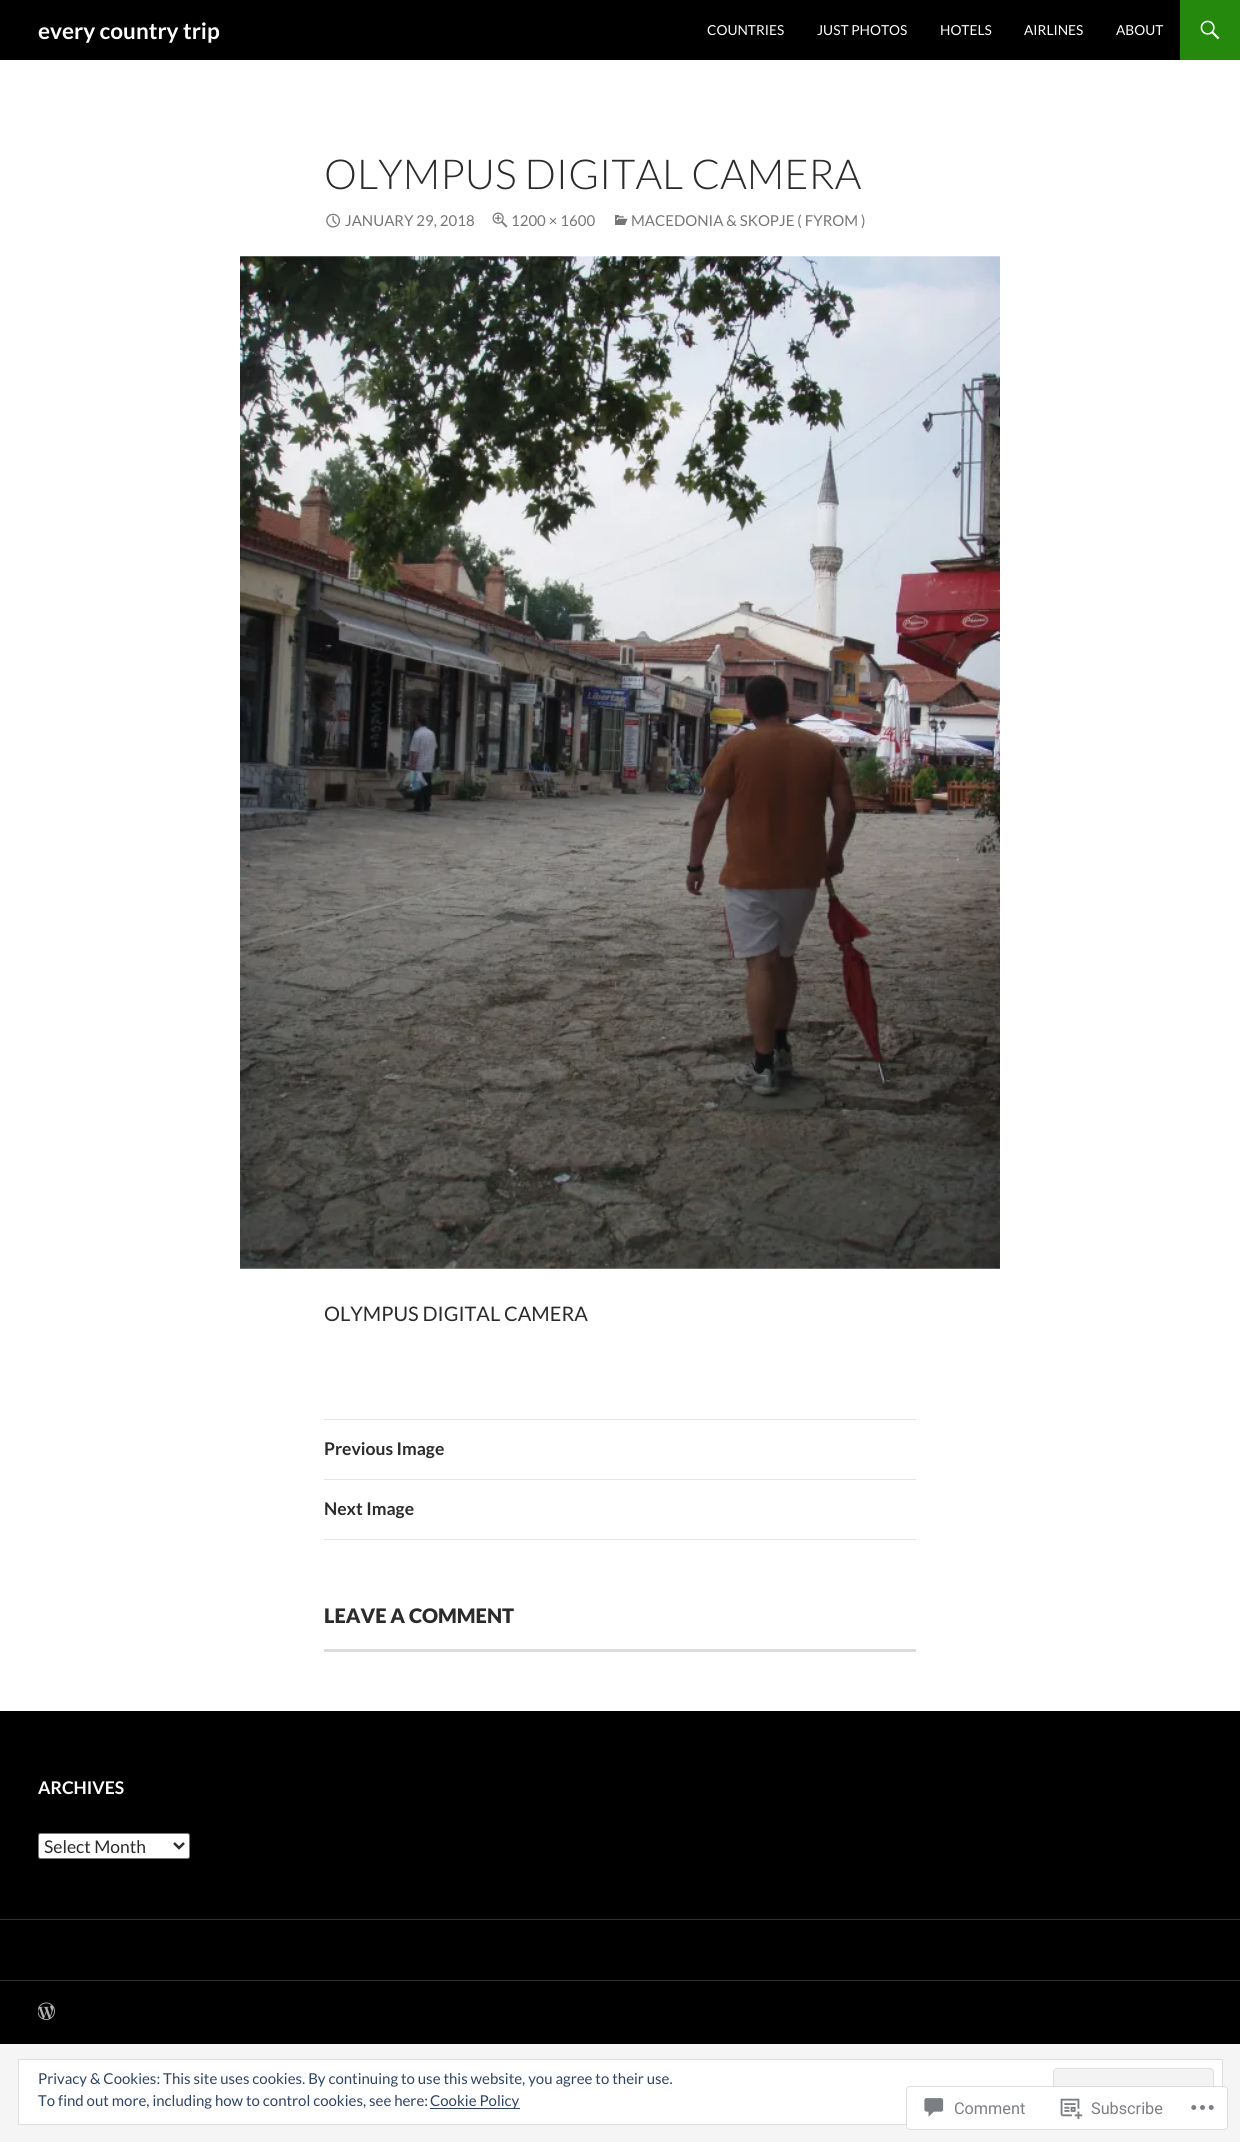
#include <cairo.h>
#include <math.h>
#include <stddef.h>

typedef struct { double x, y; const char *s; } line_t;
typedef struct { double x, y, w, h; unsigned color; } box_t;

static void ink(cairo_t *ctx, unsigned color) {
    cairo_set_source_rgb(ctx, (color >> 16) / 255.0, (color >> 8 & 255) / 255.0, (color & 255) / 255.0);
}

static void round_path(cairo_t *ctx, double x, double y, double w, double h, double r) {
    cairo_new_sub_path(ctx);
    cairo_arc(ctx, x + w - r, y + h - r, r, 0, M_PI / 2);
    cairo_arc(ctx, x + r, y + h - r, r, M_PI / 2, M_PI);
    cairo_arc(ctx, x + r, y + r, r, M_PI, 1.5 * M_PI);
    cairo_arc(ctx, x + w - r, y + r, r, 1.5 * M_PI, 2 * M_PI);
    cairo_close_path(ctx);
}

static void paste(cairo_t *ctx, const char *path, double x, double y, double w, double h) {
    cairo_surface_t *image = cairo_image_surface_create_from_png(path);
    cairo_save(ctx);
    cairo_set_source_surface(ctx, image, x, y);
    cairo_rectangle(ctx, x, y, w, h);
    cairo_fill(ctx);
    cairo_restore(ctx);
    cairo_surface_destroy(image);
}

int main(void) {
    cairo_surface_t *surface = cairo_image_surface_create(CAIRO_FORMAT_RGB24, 1240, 2142);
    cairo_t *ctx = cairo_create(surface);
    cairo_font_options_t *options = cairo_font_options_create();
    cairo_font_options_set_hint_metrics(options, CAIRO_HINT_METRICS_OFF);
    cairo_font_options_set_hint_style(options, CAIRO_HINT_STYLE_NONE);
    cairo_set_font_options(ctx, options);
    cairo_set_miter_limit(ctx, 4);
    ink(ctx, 0xF5F5F5);
    cairo_paint(ctx);
    ink(ctx, 0xFFFFFF);
    cairo_rectangle(ctx, 0, 60, 1240, 1651);
    cairo_fill(ctx);
    ink(ctx, 0x000000);
    cairo_rectangle(ctx, 0, 0, 1180, 60);
    cairo_fill(ctx);
    cairo_select_font_face(ctx, "Lato", CAIRO_FONT_SLANT_NORMAL, CAIRO_FONT_WEIGHT_BOLD);
    cairo_set_font_size(ctx, 22.5);
    ink(ctx, 0xFFFFFF);
    cairo_move_to(ctx, 38, 39);
    cairo_show_text(ctx, "every country trip");
    cairo_select_font_face(ctx, "Lato", CAIRO_FONT_SLANT_NORMAL, CAIRO_FONT_WEIGHT_NORMAL);
    cairo_set_font_size(ctx, 13.75);
    {
        static const line_t items[] = {
            {707, 35, "COUNTRIES"},
            {817, 35, "JUST PHOTOS"},
            {940, 35, "HOTELS"},
            {1024, 35, "AIRLINES"},
            {1116, 35, "ABOUT"},
        };
        for (size_t i = 0; i < sizeof items / sizeof *items; i++) {
            cairo_move_to(ctx, items[i].x, items[i].y);
            cairo_show_text(ctx, items[i].s);
        }
    }
    ink(ctx, 0x24890D);
    cairo_rectangle(ctx, 1180, 0, 60, 60);
    cairo_fill(ctx);
    paste(ctx, "media/1.png", 1200, 20, 20, 20);
    cairo_select_font_face(ctx, "Lato Light", CAIRO_FONT_SLANT_NORMAL, CAIRO_FONT_WEIGHT_NORMAL);
    cairo_set_font_size(ctx, 41.25);
    ink(ctx, 0x2B2B2B);
    cairo_move_to(ctx, 324, 189);
    cairo_show_text(ctx, "OLYMPUS DIGITAL CAMERA");
    paste(ctx, "media/2.png", 326, 213, 14, 15);
    cairo_select_font_face(ctx, "Lato", CAIRO_FONT_SLANT_NORMAL, CAIRO_FONT_WEIGHT_NORMAL);
    cairo_set_font_size(ctx, 15);
    ink(ctx, 0x767676);
    cairo_move_to(ctx, 345, 226);
    cairo_show_text(ctx, "JANUARY 29, 2018");
    paste(ctx, "media/3.png", 492, 212, 16, 16);
    cairo_move_to(ctx, 511, 226);
    cairo_show_text(ctx, "1200 × 1600");
    paste(ctx, "media/4.png", 615, 215, 13, 10);
    cairo_move_to(ctx, 631, 226);
    cairo_show_text(ctx, "MACEDONIA & SKOPJE ( FYROM )");
    paste(ctx, "media/5.png", 240, 256, 760, 1013);
    cairo_set_font_size(ctx, 20);
    ink(ctx, 0x2B2B2B);
    cairo_move_to(ctx, 324, 1321);
    cairo_show_text(ctx, "OLYMPUS DIGITAL CAMERA");
    ink(ctx, 0xE6E6E6);
    cairo_rectangle(ctx, 324, 1419, 592, 1);
    cairo_fill(ctx);
    cairo_rectangle(ctx, 324, 1479, 592, 1);
    cairo_fill(ctx);
    cairo_select_font_face(ctx, "Lato", CAIRO_FONT_SLANT_NORMAL, CAIRO_FONT_WEIGHT_BOLD);
    cairo_set_font_size(ctx, 17.5);
    ink(ctx, 0x2B2B2B);
    cairo_move_to(ctx, 324, 1455);
    cairo_show_text(ctx, "Previous Image");
    ink(ctx, 0xE6E6E6);
    cairo_rectangle(ctx, 324, 1539, 592, 1);
    cairo_fill(ctx);
    ink(ctx, 0x2B2B2B);
    cairo_move_to(ctx, 324, 1515);
    cairo_show_text(ctx, "Next Image");
    cairo_select_font_face(ctx, "Lato Black", CAIRO_FONT_SLANT_NORMAL, CAIRO_FONT_WEIGHT_NORMAL);
    cairo_set_font_size(ctx, 20);
    cairo_move_to(ctx, 324, 1623);
    cairo_show_text(ctx, "LEAVE A COMMENT");
    {
        static const box_t items[] = {
            {324, 1649, 592, 3, 0xDCDCDE},
            {0, 1711, 1240, 208, 0x000000},
            {0, 1919, 1240, 1, 0x333333},
        };
        for (size_t i = 0; i < sizeof items / sizeof *items; i++) {
            ink(ctx, items[i].color);
            cairo_rectangle(ctx, items[i].x, items[i].y, items[i].w, items[i].h);
            cairo_fill(ctx);
        }
    }
    cairo_select_font_face(ctx, "Lato", CAIRO_FONT_SLANT_NORMAL, CAIRO_FONT_WEIGHT_BOLD);
    cairo_set_font_size(ctx, 17.5);
    ink(ctx, 0xFFFFFF);
    cairo_move_to(ctx, 38, 1794);
    cairo_show_text(ctx, "ARCHIVES");
    round_path(ctx, 38.5, 1833.5, 151, 25, 2);
    cairo_fill_preserve(ctx);
    ink(ctx, 0x767676);
    cairo_set_line_width(ctx, 1);
    cairo_stroke(ctx);
    cairo_new_path(ctx);
    cairo_move_to(ctx, 174, 1843);
    cairo_line_to(ctx, 179, 1848);
    cairo_line_to(ctx, 184, 1843);
    ink(ctx, 0x2B2B2B);
    cairo_set_line_width(ctx, 2.5);
    cairo_stroke(ctx);
    cairo_select_font_face(ctx, "Lato", CAIRO_FONT_SLANT_NORMAL, CAIRO_FONT_WEIGHT_NORMAL);
    cairo_move_to(ctx, 44, 1853);
    cairo_show_text(ctx, "Select Month");
    ink(ctx, 0x000000);
    cairo_rectangle(ctx, 0, 1920, 1240, 124);
    cairo_fill(ctx);
    ink(ctx, 0x333333);
    cairo_rectangle(ctx, 0, 1980, 1240, 1);
    cairo_fill(ctx);
    paste(ctx, "media/6.png", 38, 2002, 17, 18);
    ink(ctx, 0xFFFFFF);
    cairo_rectangle(ctx, 18.5, 2059.5, 1204, 65);
    cairo_fill_preserve(ctx);
    ink(ctx, 0xDEDEDE);
    cairo_set_line_width(ctx, 1);
    cairo_stroke(ctx);
    cairo_set_font_size(ctx, 15);
    ink(ctx, 0x2E4467);
    cairo_move_to(ctx, 38, 2084);
    cairo_show_text(ctx, "Privacy & Cookies: This site uses cookies. By continuing to use this website, you agree to their use.");
    ink(ctx, 0xF3F3F3);
    round_path(ctx, 1053.5, 2068.5, 160, 47, 3.5);
    cairo_fill_preserve(ctx);
    ink(ctx, 0xDEDEDE);
    cairo_stroke(ctx);
    ink(ctx, 0x2E4467);
    cairo_move_to(ctx, 38, 2106);
    cairo_show_text(ctx, "To find out more, including how to control cookies, see here:");
    cairo_rectangle(ctx, 430, 2108, 90, 1);
    cairo_fill(ctx);
    cairo_move_to(ctx, 430, 2106);
    cairo_show_text(ctx, "Cookie Policy");
    cairo_set_source_rgba(ctx, 1, 1, 1, 0.98);
    round_path(ctx, 906, 2086, 322, 44, 4);
    cairo_fill(ctx);
    round_path(ctx, 906.5, 2086.5, 321, 43, 3.5);
    cairo_set_source_rgba(ctx, 0.863, 0.863, 0.871, 0.98);
    cairo_stroke(ctx);
    paste(ctx, "media/7.png", 924, 2098, 20, 19);
    cairo_select_font_face(ctx, "Roboto", CAIRO_FONT_SLANT_NORMAL, CAIRO_FONT_WEIGHT_NORMAL);
    cairo_set_font_size(ctx, 16.25);
    ink(ctx, 0x7B7F85);
    cairo_move_to(ctx, 954, 2114);
    cairo_show_text(ctx, "Comment");
    paste(ctx, "media/8.png", 1060, 2098, 23, 22);
    cairo_move_to(ctx, 1091, 2114);
    cairo_show_text(ctx, "Subscribe");
    paste(ctx, "media/9.png", 1191, 2105, 23, 5);
    cairo_surface_write_to_png(surface, "image.png");
    cairo_font_options_destroy(options);
    cairo_destroy(ctx);
    cairo_surface_destroy(surface);
    return 0;
}
